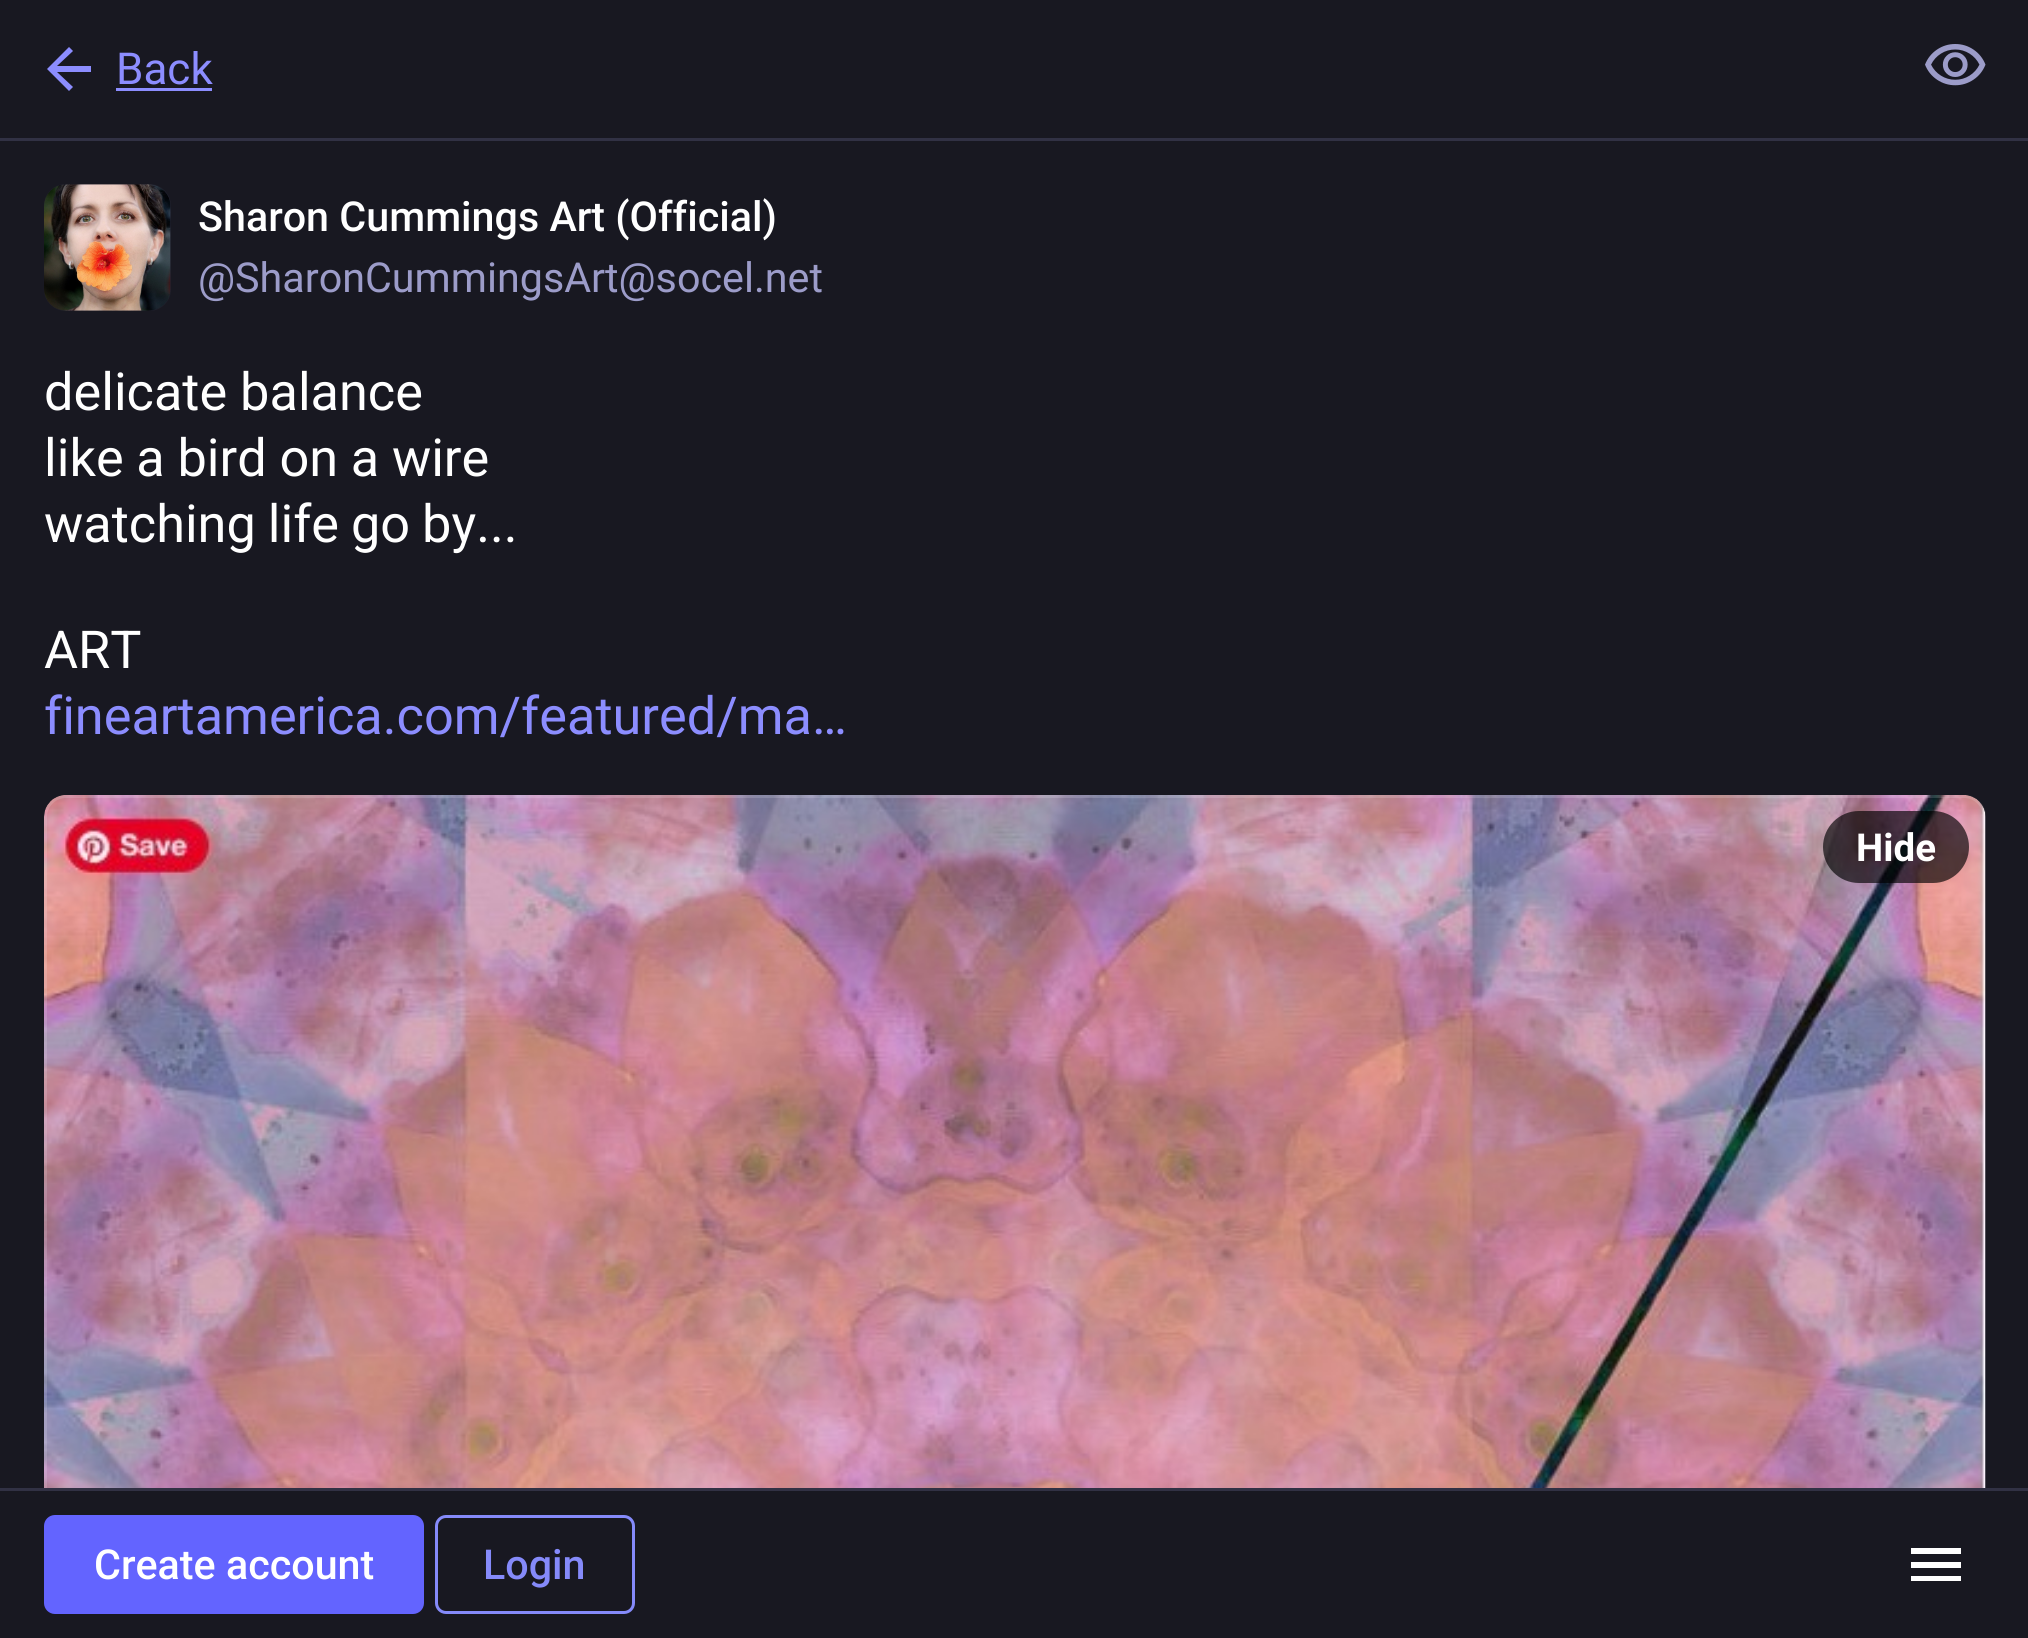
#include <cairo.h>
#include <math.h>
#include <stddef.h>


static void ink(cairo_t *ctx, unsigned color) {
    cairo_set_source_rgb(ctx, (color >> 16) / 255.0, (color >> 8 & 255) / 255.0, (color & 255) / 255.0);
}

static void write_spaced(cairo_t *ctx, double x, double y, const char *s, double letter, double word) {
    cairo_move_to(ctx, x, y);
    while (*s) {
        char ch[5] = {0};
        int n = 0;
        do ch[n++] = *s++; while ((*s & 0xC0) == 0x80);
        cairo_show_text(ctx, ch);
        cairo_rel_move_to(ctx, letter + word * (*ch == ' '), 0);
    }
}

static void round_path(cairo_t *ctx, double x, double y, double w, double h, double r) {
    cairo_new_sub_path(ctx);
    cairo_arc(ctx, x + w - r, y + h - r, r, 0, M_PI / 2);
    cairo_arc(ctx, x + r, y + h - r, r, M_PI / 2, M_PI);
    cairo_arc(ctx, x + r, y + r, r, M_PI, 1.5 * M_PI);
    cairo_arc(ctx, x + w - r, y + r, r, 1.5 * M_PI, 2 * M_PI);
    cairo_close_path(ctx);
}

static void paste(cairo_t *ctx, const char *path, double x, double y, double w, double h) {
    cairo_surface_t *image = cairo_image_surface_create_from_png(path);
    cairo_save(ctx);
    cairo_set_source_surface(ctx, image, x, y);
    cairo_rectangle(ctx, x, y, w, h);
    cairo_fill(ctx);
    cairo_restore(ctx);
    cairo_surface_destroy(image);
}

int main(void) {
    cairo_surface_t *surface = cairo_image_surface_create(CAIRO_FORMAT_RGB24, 2028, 1638);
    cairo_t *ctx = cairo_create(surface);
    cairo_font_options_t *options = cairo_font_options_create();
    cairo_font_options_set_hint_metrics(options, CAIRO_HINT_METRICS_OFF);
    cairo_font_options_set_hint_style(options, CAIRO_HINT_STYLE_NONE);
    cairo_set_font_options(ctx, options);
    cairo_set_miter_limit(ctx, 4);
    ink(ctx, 0x181821);
    cairo_paint(ctx);
    ink(ctx, 0x313144);
    cairo_rectangle(ctx, 0, 138, 2028, 3);
    cairo_fill(ctx);
    ink(ctx, 0x8C8DFF);
    cairo_new_path(ctx);
    cairo_move_to(ctx, 57, 72);
    cairo_line_to(ctx, 73, 87);
    cairo_line_to(ctx, 69, 91);
    cairo_line_to(ctx, 47, 69);
    cairo_line_to(ctx, 69, 47);
    cairo_line_to(ctx, 73, 51);
    cairo_line_to(ctx, 57, 66);
    cairo_line_to(ctx, 91, 66);
    cairo_line_to(ctx, 91, 72);
    cairo_close_path(ctx);
    cairo_fill(ctx);
    cairo_select_font_face(ctx, "Roboto", CAIRO_FONT_SLANT_NORMAL, CAIRO_FONT_WEIGHT_NORMAL);
    cairo_set_font_size(ctx, 44);
    cairo_move_to(ctx, 116, 84);
    cairo_show_text(ctx, "Back");
    cairo_rectangle(ctx, 116, 88, 96, 3);
    cairo_fill(ctx);
    paste(ctx, "media/1.png", 1925, 44, 61, 42);
    ink(ctx, 0x20202C);
    round_path(ctx, 44, 184, 127, 127, 22);
    cairo_fill(ctx);
    paste(ctx, "media/2.png", 44, 184, 127, 127);
    cairo_select_font_face(ctx, "Roboto Medium", CAIRO_FONT_SLANT_NORMAL, CAIRO_FONT_WEIGHT_NORMAL);
    cairo_set_font_size(ctx, 41.25);
    ink(ctx, 0xFFFFFF);
    cairo_move_to(ctx, 198, 231);
    cairo_show_text(ctx, "Sharon Cummings Art (Official)");
    cairo_select_font_face(ctx, "Roboto", CAIRO_FONT_SLANT_NORMAL, CAIRO_FONT_WEIGHT_NORMAL);
    ink(ctx, 0x9C9CC9);
    cairo_move_to(ctx, 198, 292);
    cairo_show_text(ctx, "@SharonCummingsArt@socel.net");
    cairo_set_font_size(ctx, 52.25);
    ink(ctx, 0xFFFFFF);
    cairo_move_to(ctx, 44, 410);
    cairo_show_text(ctx, "delicate balance");
    write_spaced(ctx, 44, 476, "like a bird on a wire", 0, -0.25);
    write_spaced(ctx, 44, 542, "watching life go by...", 0, -1);
    cairo_move_to(ctx, 44, 668);
    cairo_show_text(ctx, "ART");
    ink(ctx, 0x8C8DFF);
    cairo_move_to(ctx, 44, 734);
    cairo_show_text(ctx, "fineartamerica.com/featured/ma…");
    paste(ctx, "media/3.png", 44, 795, 1942, 693);
    round_path(ctx, 45.5, 796.5, 1939, 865, 20.5);
    cairo_set_source_rgba(ctx, 0.988, 0.973, 1, 0.15);
    cairo_set_line_width(ctx, 3);
    cairo_stroke(ctx);
    cairo_set_source_rgba(ctx, 0, 0, 0, 0.65);
    round_path(ctx, 1823, 811, 146, 72, 36);
    cairo_fill(ctx);
    cairo_select_font_face(ctx, "Roboto", CAIRO_FONT_SLANT_NORMAL, CAIRO_FONT_WEIGHT_BOLD);
    cairo_set_font_size(ctx, 38.5);
    ink(ctx, 0xFFFFFF);
    cairo_move_to(ctx, 1856, 861);
    cairo_show_text(ctx, "Hide");
    ink(ctx, 0x181821);
    cairo_rectangle(ctx, 44, 1491, 1942, 147);
    cairo_fill(ctx);
    ink(ctx, 0x313144);
    cairo_rectangle(ctx, 0, 1488, 2028, 3);
    cairo_fill(ctx);
    ink(ctx, 0x6364FF);
    round_path(ctx, 44, 1515, 380, 99, 11);
    cairo_fill(ctx);
    cairo_select_font_face(ctx, "Roboto Medium", CAIRO_FONT_SLANT_NORMAL, CAIRO_FONT_WEIGHT_NORMAL);
    cairo_set_font_size(ctx, 41.25);
    ink(ctx, 0xFFFFFF);
    cairo_move_to(ctx, 94, 1579);
    cairo_show_text(ctx, "Create account");
    round_path(ctx, 436.5, 1516.5, 197, 96, 9.5);
    ink(ctx, 0x858AFA);
    cairo_stroke(ctx);
    cairo_move_to(ctx, 483, 1579);
    cairo_show_text(ctx, "Login");
    ink(ctx, 0xFFFFFF);
    cairo_new_path(ctx);
    cairo_move_to(ctx, 1911, 1581);
    cairo_line_to(ctx, 1911, 1576);
    cairo_line_to(ctx, 1961, 1576);
    cairo_line_to(ctx, 1961, 1581);
    cairo_close_path(ctx);
    cairo_move_to(ctx, 1911, 1568);
    cairo_line_to(ctx, 1911, 1562);
    cairo_line_to(ctx, 1961, 1562);
    cairo_line_to(ctx, 1961, 1568);
    cairo_close_path(ctx);
    cairo_move_to(ctx, 1911, 1554);
    cairo_line_to(ctx, 1911, 1548);
    cairo_line_to(ctx, 1961, 1548);
    cairo_line_to(ctx, 1961, 1554);
    cairo_close_path(ctx);
    cairo_fill(ctx);
    cairo_surface_write_to_png(surface, "image.png");
    cairo_font_options_destroy(options);
    cairo_destroy(ctx);
    cairo_surface_destroy(surface);
    return 0;
}
